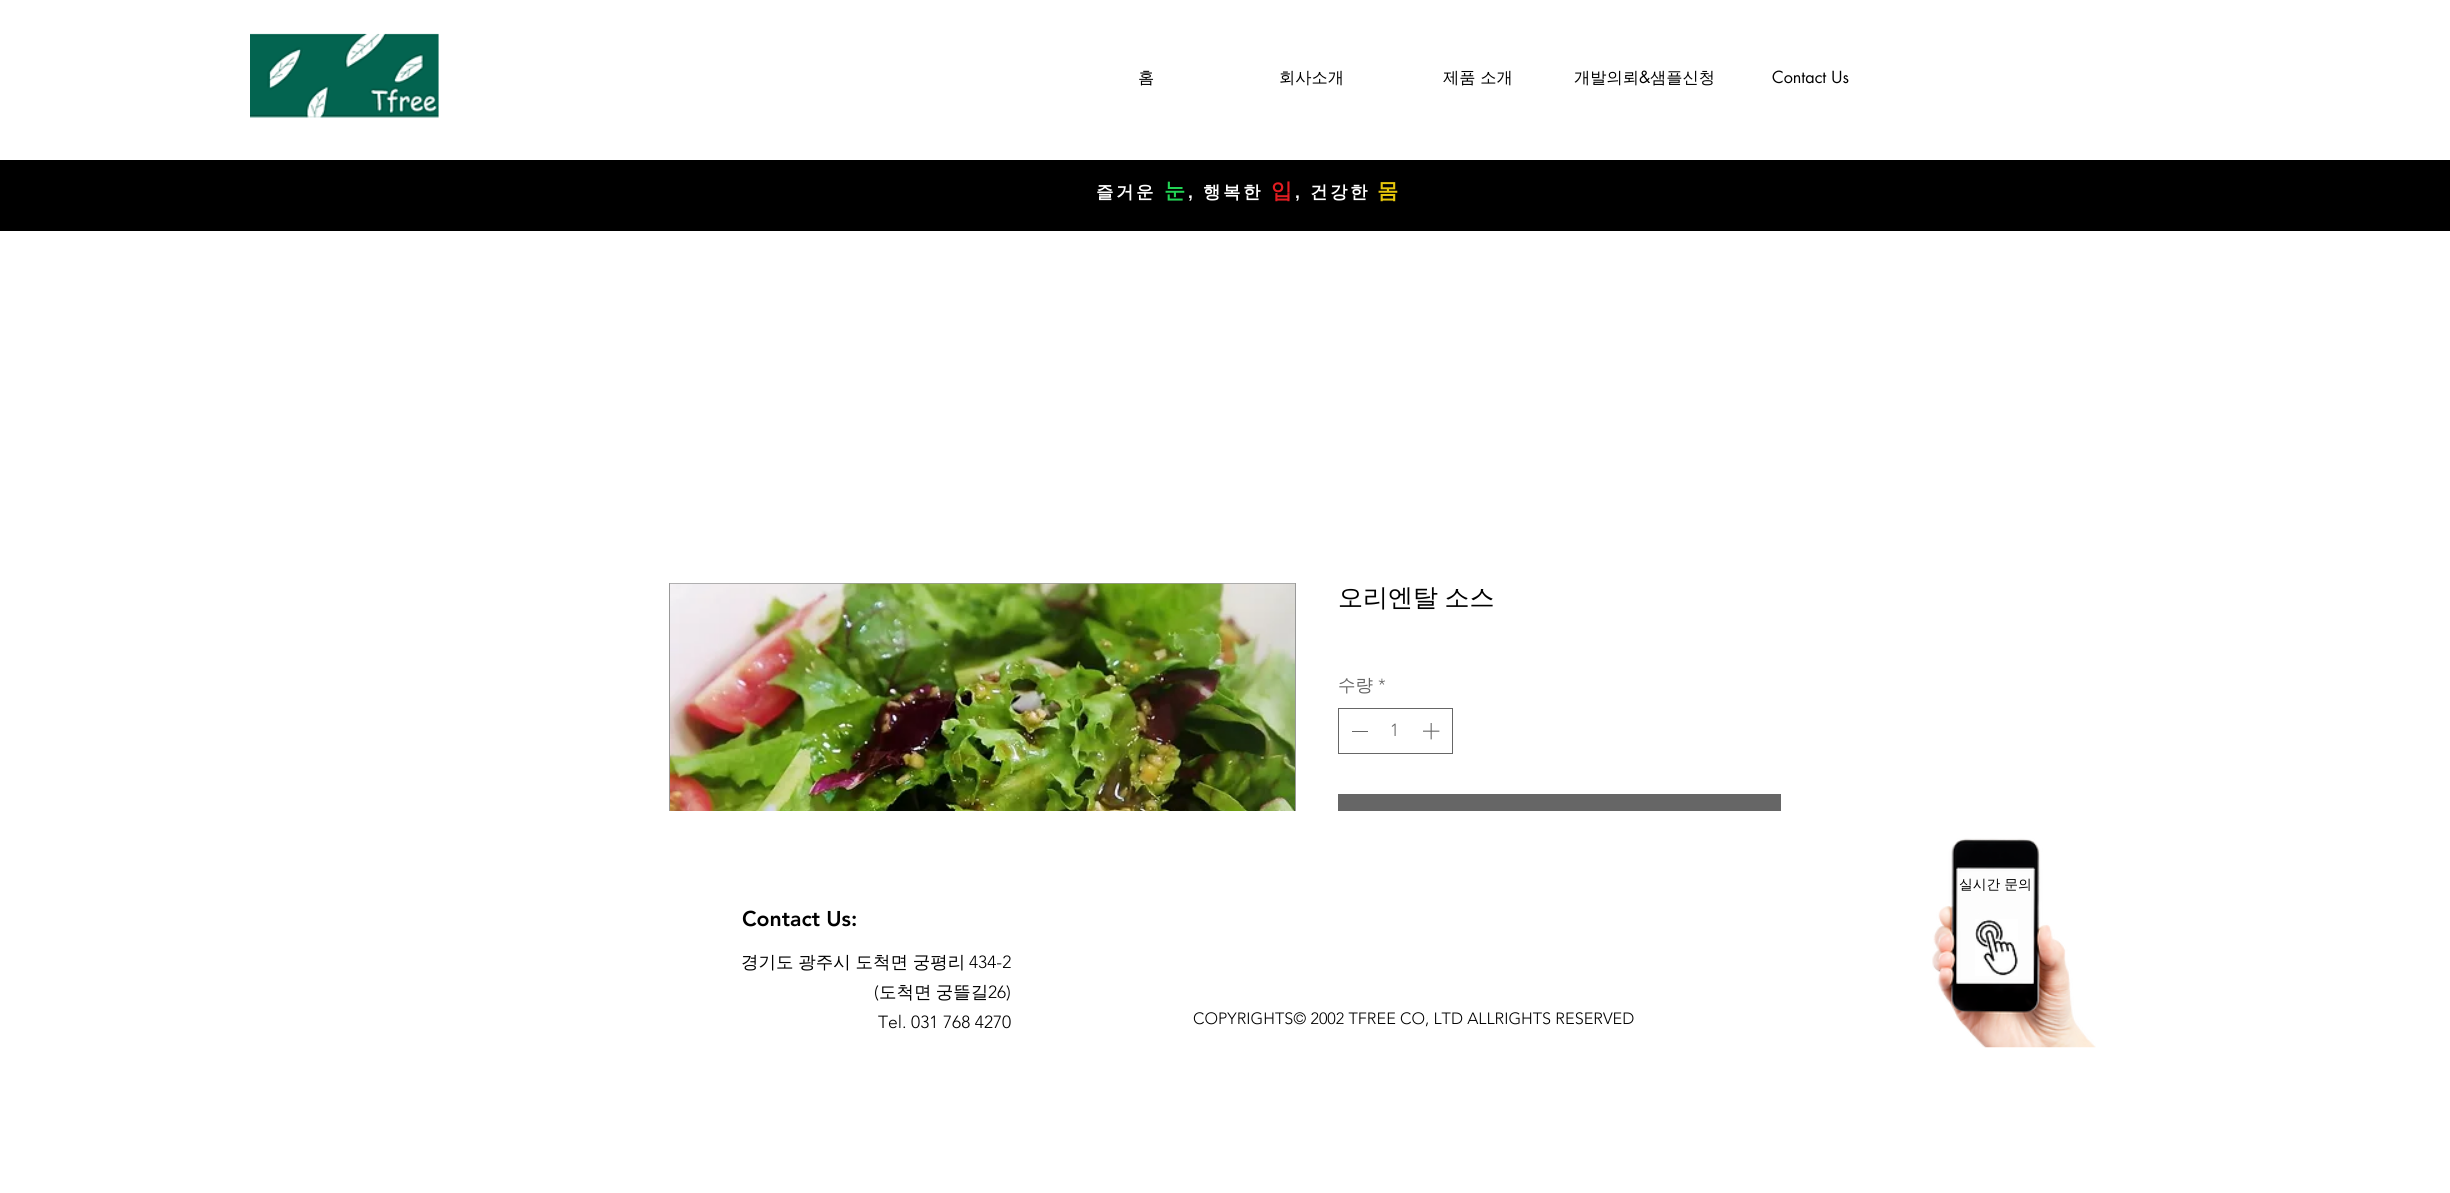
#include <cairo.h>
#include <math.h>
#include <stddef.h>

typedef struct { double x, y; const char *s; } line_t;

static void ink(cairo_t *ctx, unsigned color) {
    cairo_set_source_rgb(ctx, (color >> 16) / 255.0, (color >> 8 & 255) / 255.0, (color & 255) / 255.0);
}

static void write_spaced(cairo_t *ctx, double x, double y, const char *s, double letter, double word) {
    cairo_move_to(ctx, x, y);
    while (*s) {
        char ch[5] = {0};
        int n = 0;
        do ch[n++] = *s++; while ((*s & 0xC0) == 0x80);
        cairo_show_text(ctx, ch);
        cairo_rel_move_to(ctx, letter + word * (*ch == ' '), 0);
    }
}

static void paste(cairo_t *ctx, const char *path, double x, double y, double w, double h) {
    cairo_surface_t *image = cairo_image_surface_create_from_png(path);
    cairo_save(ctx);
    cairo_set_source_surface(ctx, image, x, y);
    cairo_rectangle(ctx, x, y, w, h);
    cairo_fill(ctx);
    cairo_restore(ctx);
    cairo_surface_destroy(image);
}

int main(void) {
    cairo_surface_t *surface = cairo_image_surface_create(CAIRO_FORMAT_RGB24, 2450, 1193);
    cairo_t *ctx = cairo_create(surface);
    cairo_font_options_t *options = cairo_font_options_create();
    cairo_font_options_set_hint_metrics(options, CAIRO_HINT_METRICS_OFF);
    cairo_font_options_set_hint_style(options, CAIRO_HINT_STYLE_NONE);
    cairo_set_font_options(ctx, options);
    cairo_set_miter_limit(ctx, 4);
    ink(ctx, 0xFFFFFF);
    cairo_paint(ctx);
    paste(ctx, "media/1.png", 250, 33, 189, 85);
    cairo_select_font_face(ctx, "WenQuanYi Zen Hei Medium", CAIRO_FONT_SLANT_NORMAL, CAIRO_FONT_WEIGHT_NORMAL);
    cairo_set_font_size(ctx, 16.25);
    ink(ctx, 0x000000);
    {
        static const line_t items[] = {
            {1138, 83, "홈"},
            {1279, 83, "회사소개"},
            {1443, 83, "제품 소개"},
            {1574, 83, "개발의뢰"},
        };
        for (size_t i = 0; i < sizeof items / sizeof *items; i++) {
            cairo_move_to(ctx, items[i].x, items[i].y);
            cairo_show_text(ctx, items[i].s);
        }
    }
    cairo_select_font_face(ctx, "futura", CAIRO_FONT_SLANT_NORMAL, CAIRO_FONT_WEIGHT_NORMAL);
    cairo_move_to(ctx, 1639, 83);
    cairo_show_text(ctx, "&");
    cairo_select_font_face(ctx, "WenQuanYi Zen Hei Medium", CAIRO_FONT_SLANT_NORMAL, CAIRO_FONT_WEIGHT_NORMAL);
    cairo_move_to(ctx, 1650, 83);
    cairo_show_text(ctx, "샘플신청");
    cairo_select_font_face(ctx, "futura", CAIRO_FONT_SLANT_NORMAL, CAIRO_FONT_WEIGHT_NORMAL);
    cairo_move_to(ctx, 1772, 83);
    cairo_show_text(ctx, "Contact Us");
    cairo_rectangle(ctx, 0, 160, 2450, 71);
    cairo_fill(ctx);
    cairo_select_font_face(ctx, "WenQuanYi Zen Hei", CAIRO_FONT_SLANT_NORMAL, CAIRO_FONT_WEIGHT_BOLD);
    cairo_set_font_size(ctx, 17.5);
    ink(ctx, 0xFFFFFF);
    write_spaced(ctx, 1096, 198, "즐거운", 2.5, 0);
    cairo_set_font_size(ctx, 21.25);
    ink(ctx, 0x22D455);
    write_spaced(ctx, 1164, 198, "눈", 2.5, 0);
    cairo_select_font_face(ctx, "Liberation Sans", CAIRO_FONT_SLANT_NORMAL, CAIRO_FONT_WEIGHT_BOLD);
    cairo_set_font_size(ctx, 17.5);
    ink(ctx, 0xFFFFFF);
    write_spaced(ctx, 1188, 198, ",", 2.5, 0);
    cairo_select_font_face(ctx, "WenQuanYi Zen Hei", CAIRO_FONT_SLANT_NORMAL, CAIRO_FONT_WEIGHT_BOLD);
    write_spaced(ctx, 1203, 198, "행복한", 2.5, 0);
    cairo_set_font_size(ctx, 21.25);
    ink(ctx, 0xE21C21);
    write_spaced(ctx, 1271, 198, "입", 2.5, 0);
    cairo_select_font_face(ctx, "Liberation Sans", CAIRO_FONT_SLANT_NORMAL, CAIRO_FONT_WEIGHT_BOLD);
    cairo_set_font_size(ctx, 17.5);
    ink(ctx, 0xFFFFFF);
    write_spaced(ctx, 1295, 198, ",", 2.5, 0);
    cairo_select_font_face(ctx, "WenQuanYi Zen Hei", CAIRO_FONT_SLANT_NORMAL, CAIRO_FONT_WEIGHT_BOLD);
    write_spaced(ctx, 1310, 198, "건강한", 2.5, 0);
    cairo_set_font_size(ctx, 21.25);
    ink(ctx, 0xE6C60B);
    write_spaced(ctx, 1377, 198, "몸", 2.5, 0);
    cairo_rectangle(ctx, 669.5, 583.5, 626, 352);
    ink(ctx, 0x999999);
    cairo_set_line_width(ctx, 1);
    cairo_stroke(ctx);
    paste(ctx, "media/2.png", 670, 583, 625, 228);
    cairo_select_font_face(ctx, "WenQuanYi Zen Hei Medium", CAIRO_FONT_SLANT_NORMAL, CAIRO_FONT_WEIGHT_NORMAL);
    cairo_set_font_size(ctx, 25);
    ink(ctx, 0x000000);
    write_spaced(ctx, 1338, 606, "오리엔탈 소스", 0, -1);
    cairo_set_font_size(ctx, 17.5);
    ink(ctx, 0x666666);
    cairo_move_to(ctx, 1338, 691);
    cairo_show_text(ctx, "수량");
    cairo_select_font_face(ctx, "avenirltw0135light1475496 Light", CAIRO_FONT_SLANT_NORMAL, CAIRO_FONT_WEIGHT_NORMAL);
    cairo_move_to(ctx, 1378, 691);
    cairo_show_text(ctx, "*");
    cairo_rectangle(ctx, 1338.5, 708.5, 114, 45);
    cairo_stroke(ctx);
    cairo_rectangle(ctx, 1352, 731, 16, 1);
    cairo_fill(ctx);
    cairo_move_to(ctx, 1390, 736);
    cairo_show_text(ctx, "1");
    paste(ctx, "media/3.png", 1423, 723, 17, 17);
    cairo_rectangle(ctx, 1338, 794, 443, 17);
    cairo_fill(ctx);
    ink(ctx, 0xFFFFFF);
    cairo_rectangle(ctx, 669, 811, 627, 125);
    cairo_fill(ctx);
    paste(ctx, "media/4.png", 1932, 838, 164, 210);
    cairo_select_font_face(ctx, "WenQuanYi Zen Hei Medium", CAIRO_FONT_SLANT_NORMAL, CAIRO_FONT_WEIGHT_NORMAL);
    cairo_set_font_size(ctx, 13.75);
    ink(ctx, 0x000000);
    cairo_move_to(ctx, 1959, 889);
    cairo_show_text(ctx, "실시간 문의");
    cairo_select_font_face(ctx, "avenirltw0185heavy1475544 Black", CAIRO_FONT_SLANT_NORMAL, CAIRO_FONT_WEIGHT_NORMAL);
    cairo_set_font_size(ctx, 21.25);
    cairo_move_to(ctx, 742, 926);
    cairo_show_text(ctx, "Contact Us:");
    paste(ctx, "media/5.png", 1975, 919, 43, 57);
    cairo_select_font_face(ctx, "WenQuanYi Zen Hei Medium", CAIRO_FONT_SLANT_NORMAL, CAIRO_FONT_WEIGHT_NORMAL);
    cairo_set_font_size(ctx, 17.5);
    write_spaced(ctx, 741, 968, "경기도 광주시 도척면 궁평리", 0, -0.5);
    cairo_select_font_face(ctx, "avenirltw0135light1475496 Light", CAIRO_FONT_SLANT_NORMAL, CAIRO_FONT_WEIGHT_NORMAL);
    cairo_move_to(ctx, 969, 968);
    cairo_show_text(ctx, "434-2");
    cairo_move_to(ctx, 874, 998);
    cairo_show_text(ctx, "(");
    cairo_select_font_face(ctx, "WenQuanYi Zen Hei Medium", CAIRO_FONT_SLANT_NORMAL, CAIRO_FONT_WEIGHT_NORMAL);
    write_spaced(ctx, 879, 998, "도척면 궁뜰길", 0, -1);
    cairo_select_font_face(ctx, "avenirltw0135light1475496 Light", CAIRO_FONT_SLANT_NORMAL, CAIRO_FONT_WEIGHT_NORMAL);
    cairo_move_to(ctx, 988, 998);
    cairo_show_text(ctx, "26)");
    cairo_move_to(ctx, 878, 1028);
    cairo_show_text(ctx, "Tel. 031 768 4270");
    cairo_set_font_size(ctx, 16.25);
    cairo_move_to(ctx, 1193, 1024);
    cairo_show_text(ctx, "COPYRIGHTS© 2002 TFREE CO, LTD ALLRIGHTS RESERVED");
    cairo_surface_write_to_png(surface, "image.png");
    cairo_font_options_destroy(options);
    cairo_destroy(ctx);
    cairo_surface_destroy(surface);
    return 0;
}
